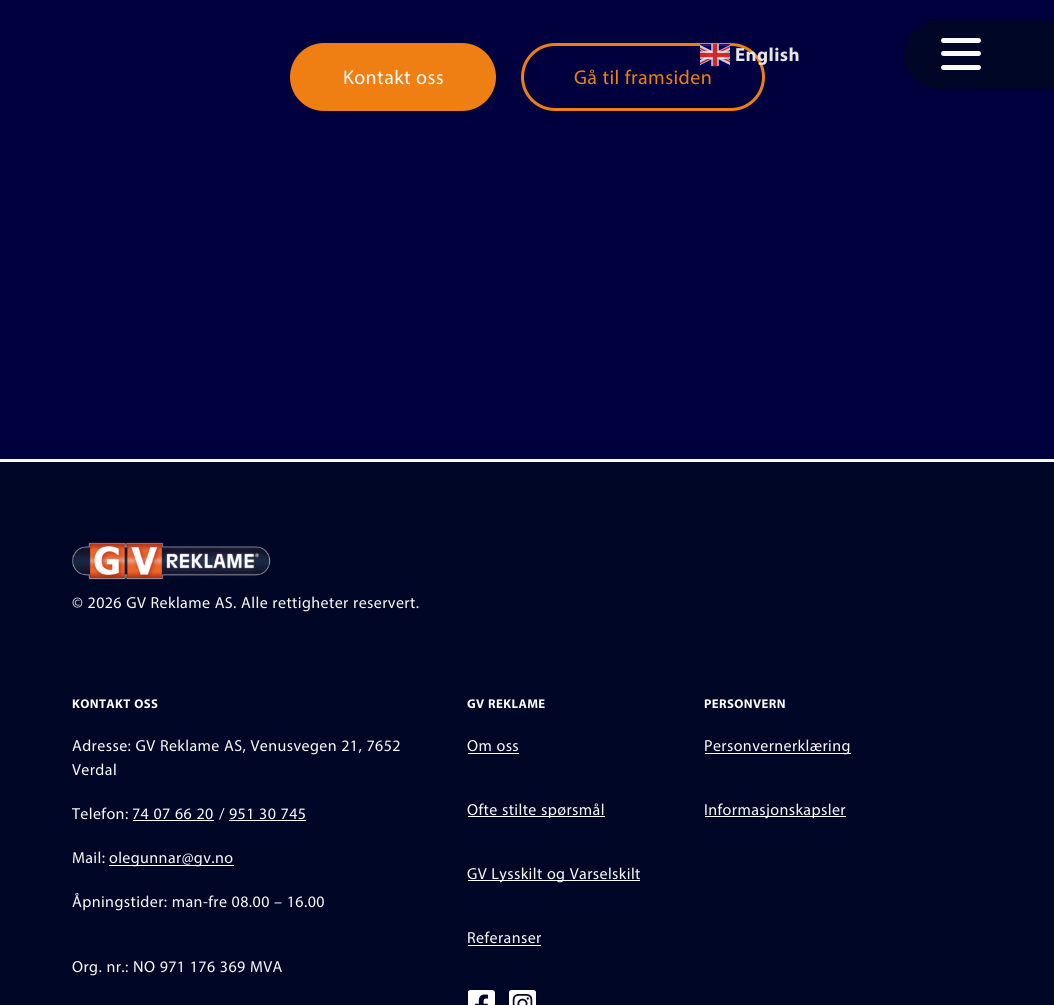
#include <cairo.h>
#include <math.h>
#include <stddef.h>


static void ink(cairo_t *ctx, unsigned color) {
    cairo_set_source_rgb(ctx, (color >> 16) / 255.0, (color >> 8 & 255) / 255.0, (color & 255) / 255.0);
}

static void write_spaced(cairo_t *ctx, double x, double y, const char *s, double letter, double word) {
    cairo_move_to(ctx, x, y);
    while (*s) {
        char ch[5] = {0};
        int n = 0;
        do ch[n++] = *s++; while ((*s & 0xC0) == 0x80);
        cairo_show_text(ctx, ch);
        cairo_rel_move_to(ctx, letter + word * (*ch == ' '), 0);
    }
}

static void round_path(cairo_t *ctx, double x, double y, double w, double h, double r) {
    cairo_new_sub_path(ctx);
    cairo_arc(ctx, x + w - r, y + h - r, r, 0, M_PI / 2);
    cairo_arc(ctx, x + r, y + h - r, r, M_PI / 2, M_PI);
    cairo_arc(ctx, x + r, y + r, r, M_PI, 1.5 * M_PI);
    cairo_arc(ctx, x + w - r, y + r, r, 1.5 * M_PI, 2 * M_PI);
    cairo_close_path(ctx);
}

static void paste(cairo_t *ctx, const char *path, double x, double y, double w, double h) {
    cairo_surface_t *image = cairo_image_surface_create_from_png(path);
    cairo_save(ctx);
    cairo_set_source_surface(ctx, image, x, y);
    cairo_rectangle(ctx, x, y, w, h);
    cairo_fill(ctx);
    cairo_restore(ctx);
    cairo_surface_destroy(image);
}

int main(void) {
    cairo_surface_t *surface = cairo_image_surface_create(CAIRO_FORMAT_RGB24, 1054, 1005);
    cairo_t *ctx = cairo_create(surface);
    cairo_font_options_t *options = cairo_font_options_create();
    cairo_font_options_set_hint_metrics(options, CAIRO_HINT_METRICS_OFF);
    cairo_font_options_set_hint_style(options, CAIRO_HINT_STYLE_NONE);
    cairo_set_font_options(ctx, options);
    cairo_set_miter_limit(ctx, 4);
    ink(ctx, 0x000726);
    cairo_paint(ctx);
    ink(ctx, 0x00003E);
    cairo_rectangle(ctx, 0, 0, 1054, 459);
    cairo_fill(ctx);
    round_path(ctx, 522.5, 44.5, 241, 65, 32.5);
    ink(ctx, 0xF07F13);
    cairo_set_line_width(ctx, 3);
    cairo_stroke(ctx);
    paste(ctx, "media/1.png", 700, 43, 30, 24);
    cairo_select_font_face(ctx, "Myriad", CAIRO_FONT_SLANT_NORMAL, CAIRO_FONT_WEIGHT_BOLD);
    cairo_set_font_size(ctx, 19);
    ink(ctx, 0xE7E7E7);
    write_spaced(ctx, 735, 61, "English", 0.4, 0);
    ink(ctx, 0x000726);
    cairo_new_path(ctx);
    cairo_move_to(ctx, 938.5, 20);
    cairo_line_to(ctx, 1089, 20);
    cairo_line_to(ctx, 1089, 89);
    cairo_line_to(ctx, 938.5, 89);
    cairo_curve_to(ctx, 919.5, 89, 904, 73.5, 904, 54.5);
    cairo_curve_to(ctx, 904, 35.5, 919.5, 20, 938.5, 20);
    cairo_close_path(ctx);
    cairo_fill(ctx);
    ink(ctx, 0xFAFAFA);
    round_path(ctx, 941, 38, 40, 5, 2.5);
    cairo_fill(ctx);
    round_path(ctx, 941, 51, 40, 5, 2.5);
    cairo_fill(ctx);
    round_path(ctx, 941, 65, 40, 5, 2.5);
    cairo_fill(ctx);
    ink(ctx, 0xF07F13);
    round_path(ctx, 291.5, 44.5, 203, 65, 32.5);
    cairo_fill_preserve(ctx);
    cairo_stroke(ctx);
    cairo_select_font_face(ctx, "Myriad", CAIRO_FONT_SLANT_NORMAL, CAIRO_FONT_WEIGHT_NORMAL);
    cairo_set_font_size(ctx, 20);
    ink(ctx, 0xFAFAFA);
    write_spaced(ctx, 343, 84, "Kontakt oss", 0.4, 0.5);
    ink(ctx, 0xF07F13);
    write_spaced(ctx, 574, 84, "Gå til framsiden", 0.4, 0.5);
    ink(ctx, 0xFAFAFA);
    cairo_rectangle(ctx, 0, 459, 1054, 3);
    cairo_fill(ctx);
    paste(ctx, "media/2.png", 72, 542, 199, 38);
    cairo_set_font_size(ctx, 16);
    write_spaced(ctx, 72, 608, "© 2026 GV Reklame AS. Alle rettigheter reservert.", 0.4, 0.5);
    cairo_select_font_face(ctx, "Myriad", CAIRO_FONT_SLANT_NORMAL, CAIRO_FONT_WEIGHT_BOLD);
    cairo_set_font_size(ctx, 12.75);
    write_spaced(ctx, 72, 708, "KONTAKT OSS", 0.4, 0.5);
    cairo_select_font_face(ctx, "Myriad", CAIRO_FONT_SLANT_NORMAL, CAIRO_FONT_WEIGHT_NORMAL);
    cairo_set_font_size(ctx, 16);
    write_spaced(ctx, 72, 751, "Adresse: GV Reklame AS, Venusvegen 21, 7652", 0.4, 0.5);
    write_spaced(ctx, 72, 775, "Verdal", 0.4, 0);
    write_spaced(ctx, 72, 819, "Telefon:", 0.4, 0);
    write_spaced(ctx, 132, 819, "74 07 66 20", 0.4, 0.5);
    cairo_rectangle(ctx, 133, 820, 81, 1);
    cairo_fill(ctx);
    write_spaced(ctx, 219, 819, "/", 0.4, 0);
    write_spaced(ctx, 229, 819, "951 30 745", 0.4, 0.5);
    cairo_rectangle(ctx, 229, 820, 77, 1);
    cairo_fill(ctx);
    write_spaced(ctx, 72, 863, "Mail:", 0.4, 0);
    cairo_rectangle(ctx, 109, 865, 125, 1);
    cairo_fill(ctx);
    write_spaced(ctx, 109, 863, "olegunnar@gv.no", 0.4, 0);
    write_spaced(ctx, 72, 907, "Åpningstider: man-fre 08.00 – 16.00", 0.4, 0.5);
    ink(ctx, 0x000622);
    cairo_rectangle(ctx, 71, 934, 359, 1);
    cairo_fill(ctx);
    ink(ctx, 0xFAFAFA);
    write_spaced(ctx, 72, 972, "Org. nr.: NO 971 176 369 MVA", 0.4, 0.5);
    cairo_select_font_face(ctx, "Myriad", CAIRO_FONT_SLANT_NORMAL, CAIRO_FONT_WEIGHT_BOLD);
    cairo_set_font_size(ctx, 12.75);
    write_spaced(ctx, 467, 708, "GV REKLAME", 0.4, 0.5);
    cairo_select_font_face(ctx, "Myriad", CAIRO_FONT_SLANT_NORMAL, CAIRO_FONT_WEIGHT_NORMAL);
    cairo_set_font_size(ctx, 16);
    write_spaced(ctx, 467, 751, "Om oss", 0.4, 0.5);
    cairo_rectangle(ctx, 468, 753, 51, 1);
    cairo_fill(ctx);
    cairo_rectangle(ctx, 468, 816, 137, 1);
    cairo_fill(ctx);
    write_spaced(ctx, 467, 815, "Ofte stilte spørsmål", 0.4, 0.5);
    cairo_rectangle(ctx, 468, 880, 172, 1);
    cairo_fill(ctx);
    write_spaced(ctx, 467, 879, "GV Lysskilt og Varselskilt", 0.4, 0.5);
    write_spaced(ctx, 467, 943, "Referanser", 0.4, 0);
    cairo_rectangle(ctx, 468, 945, 73, 1);
    cairo_fill(ctx);
    paste(ctx, "media/3.png", 468, 990, 27, 15);
    paste(ctx, "media/4.png", 509, 990, 27, 15);
    cairo_select_font_face(ctx, "Myriad", CAIRO_FONT_SLANT_NORMAL, CAIRO_FONT_WEIGHT_BOLD);
    cairo_set_font_size(ctx, 12.75);
    write_spaced(ctx, 704, 708, "PERSONVERN", 0.4, 0);
    cairo_rectangle(ctx, 705, 753, 146, 1);
    cairo_fill(ctx);
    cairo_select_font_face(ctx, "Myriad", CAIRO_FONT_SLANT_NORMAL, CAIRO_FONT_WEIGHT_NORMAL);
    cairo_set_font_size(ctx, 16);
    write_spaced(ctx, 704, 751, "Personvernerklæring", 0.4, 0);
    cairo_rectangle(ctx, 705, 816, 141, 1);
    cairo_fill(ctx);
    write_spaced(ctx, 704, 815, "Informasjonskapsler", 0.4, 0);
    cairo_surface_write_to_png(surface, "image.png");
    cairo_font_options_destroy(options);
    cairo_destroy(ctx);
    cairo_surface_destroy(surface);
    return 0;
}
